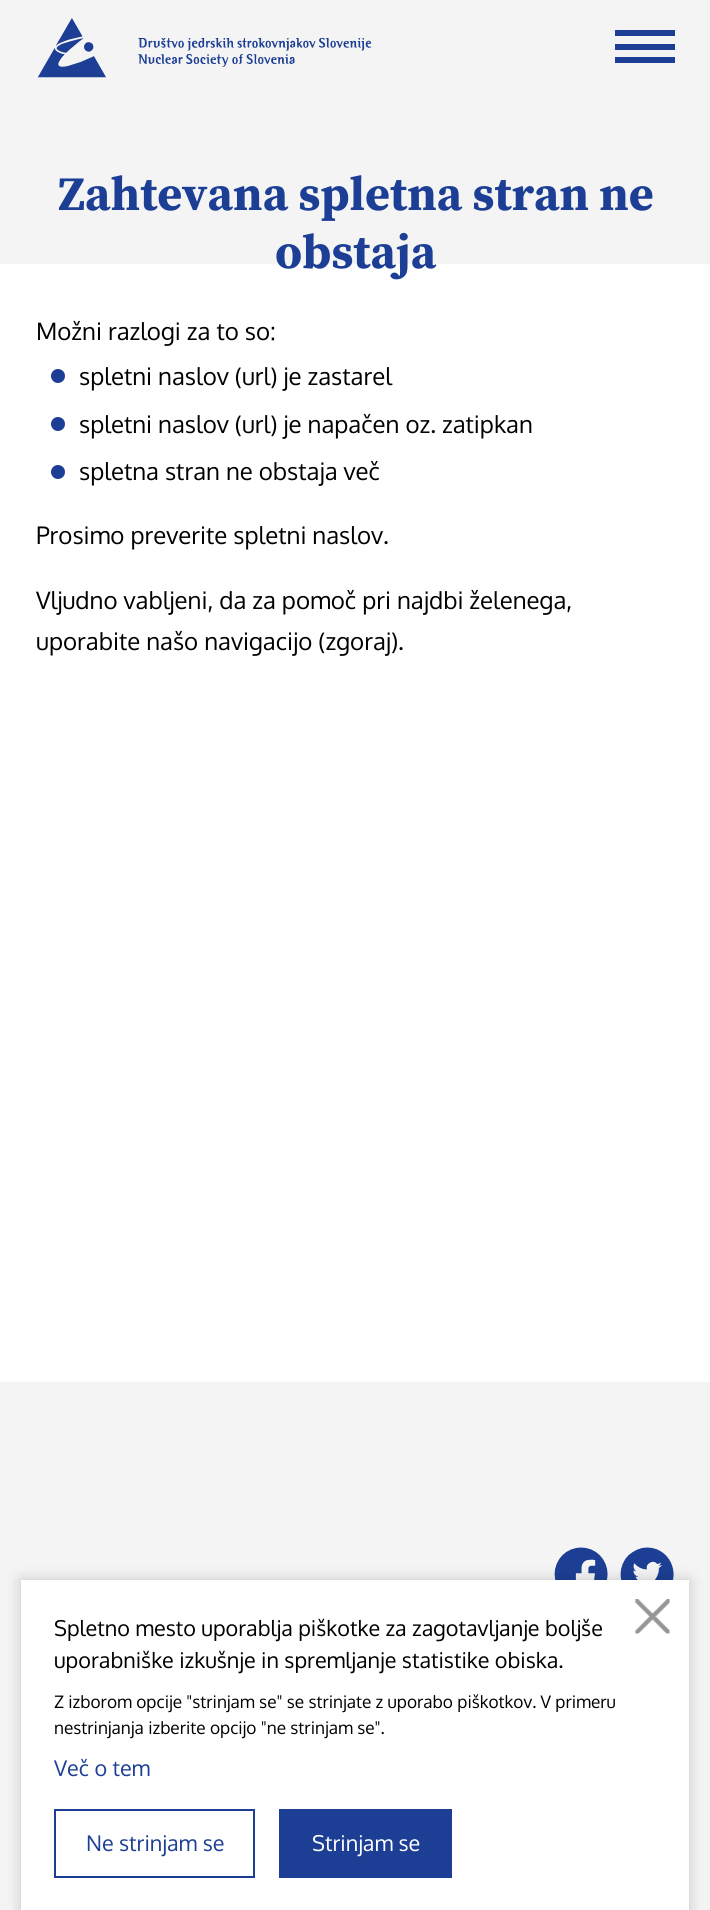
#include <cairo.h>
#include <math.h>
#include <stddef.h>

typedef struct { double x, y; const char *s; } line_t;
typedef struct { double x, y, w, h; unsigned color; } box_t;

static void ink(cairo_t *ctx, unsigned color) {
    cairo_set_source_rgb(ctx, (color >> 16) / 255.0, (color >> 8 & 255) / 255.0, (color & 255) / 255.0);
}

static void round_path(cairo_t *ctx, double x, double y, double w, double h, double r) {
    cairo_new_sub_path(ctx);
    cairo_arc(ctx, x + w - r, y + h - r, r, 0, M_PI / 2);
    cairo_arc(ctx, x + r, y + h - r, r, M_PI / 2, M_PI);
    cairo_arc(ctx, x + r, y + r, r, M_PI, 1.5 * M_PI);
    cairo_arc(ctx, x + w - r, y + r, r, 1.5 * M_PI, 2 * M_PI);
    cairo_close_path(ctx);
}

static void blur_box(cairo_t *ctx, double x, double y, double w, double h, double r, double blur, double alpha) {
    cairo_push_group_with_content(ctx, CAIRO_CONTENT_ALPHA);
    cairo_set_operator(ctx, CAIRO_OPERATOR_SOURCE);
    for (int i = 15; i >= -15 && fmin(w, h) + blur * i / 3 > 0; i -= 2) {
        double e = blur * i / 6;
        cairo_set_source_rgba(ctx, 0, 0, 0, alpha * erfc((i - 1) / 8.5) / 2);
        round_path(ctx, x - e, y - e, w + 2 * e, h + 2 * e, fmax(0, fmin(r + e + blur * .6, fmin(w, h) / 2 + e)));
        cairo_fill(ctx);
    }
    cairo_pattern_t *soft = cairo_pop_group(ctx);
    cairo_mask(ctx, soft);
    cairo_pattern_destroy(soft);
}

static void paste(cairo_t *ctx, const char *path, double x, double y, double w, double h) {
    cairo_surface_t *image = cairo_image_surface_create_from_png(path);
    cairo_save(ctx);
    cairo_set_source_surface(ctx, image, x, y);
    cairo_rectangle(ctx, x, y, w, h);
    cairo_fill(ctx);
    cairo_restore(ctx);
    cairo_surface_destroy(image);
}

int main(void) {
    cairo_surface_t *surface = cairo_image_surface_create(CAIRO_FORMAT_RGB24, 710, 1910);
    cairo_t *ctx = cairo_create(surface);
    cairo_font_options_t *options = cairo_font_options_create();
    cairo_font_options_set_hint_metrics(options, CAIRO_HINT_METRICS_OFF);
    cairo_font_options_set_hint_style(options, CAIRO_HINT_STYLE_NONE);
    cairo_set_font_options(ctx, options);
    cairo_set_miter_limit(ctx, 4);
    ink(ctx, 0xFFFFFF);
    cairo_paint(ctx);
    ink(ctx, 0xF4F4F4);
    cairo_rectangle(ctx, 0, 0, 710, 264);
    cairo_fill(ctx);
    paste(ctx, "media/1.png", 37, 18, 69, 60);
    paste(ctx, "media/2.png", 138, 37, 234, 30);
    {
        static const box_t items[] = {
            {615, 30, 60, 6, 0x1C3F95},
            {615, 44, 60, 6, 0x1C3F95},
            {615, 57, 60, 6, 0x1C3F95},
        };
        for (size_t i = 0; i < sizeof items / sizeof *items; i++) {
            ink(ctx, items[i].color);
            cairo_rectangle(ctx, items[i].x, items[i].y, items[i].w, items[i].h);
            cairo_fill(ctx);
        }
    }
    cairo_select_font_face(ctx, "Source Serif Pro", CAIRO_FONT_SLANT_NORMAL, CAIRO_FONT_WEIGHT_BOLD);
    cairo_set_font_size(ctx, 48);
    cairo_move_to(ctx, 58, 210);
    cairo_show_text(ctx, "Zahtevana spletna stran ne");
    cairo_move_to(ctx, 275, 268);
    cairo_show_text(ctx, "obstaja");
    cairo_select_font_face(ctx, "Oxygen", CAIRO_FONT_SLANT_NORMAL, CAIRO_FONT_WEIGHT_NORMAL);
    cairo_set_font_size(ctx, 24);
    ink(ctx, 0x000000);
    cairo_move_to(ctx, 36, 340);
    cairo_show_text(ctx, "Možni razlogi za to so:");
    ink(ctx, 0x1C3F95);
    cairo_new_path(ctx);
    cairo_arc(ctx, 58, 376, 7, 0, 2 * M_PI);
    cairo_fill(ctx);
    ink(ctx, 0x000000);
    cairo_move_to(ctx, 79, 385);
    cairo_show_text(ctx, "spletni naslov (url) je zastarel");
    ink(ctx, 0x1C3F95);
    cairo_new_path(ctx);
    cairo_arc(ctx, 58, 424, 7, 0, 2 * M_PI);
    cairo_fill(ctx);
    ink(ctx, 0x000000);
    cairo_move_to(ctx, 79, 433);
    cairo_show_text(ctx, "spletni naslov (url) je napačen oz. zatipkan");
    ink(ctx, 0x1C3F95);
    cairo_new_path(ctx);
    cairo_arc(ctx, 58, 472, 7, 0, 2 * M_PI);
    cairo_fill(ctx);
    ink(ctx, 0x000000);
    {
        static const line_t items[] = {
            {79, 480, "spletna stran ne obstaja več"},
            {36, 544, "Prosimo preverite spletni naslov."},
            {36, 609, "Vljudno vabljeni, da za pomoč pri najdbi želenega,"},
            {36, 650, "uporabite našo navigacijo (zgoraj)."},
        };
        for (size_t i = 0; i < sizeof items / sizeof *items; i++) {
            cairo_move_to(ctx, items[i].x, items[i].y);
            cairo_show_text(ctx, items[i].s);
        }
    }
    ink(ctx, 0xF4F4F4);
    cairo_rectangle(ctx, 0, 1382, 710, 528);
    cairo_fill(ctx);
    paste(ctx, "media/3.png", 554, 1547, 54, 33);
    paste(ctx, "media/4.png", 620, 1547, 54, 33);
    ink(ctx, 0x000000);
    blur_box(ctx, 21, 1580, 668, 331, 0, 7, 0.2);
    ink(ctx, 0xFFFFFF);
    cairo_rectangle(ctx, 21, 1580, 668, 330);
    cairo_fill(ctx);
    cairo_set_font_size(ctx, 21.6);
    ink(ctx, 0x000000);
    cairo_move_to(ctx, 54, 1636);
    cairo_show_text(ctx, "Spletno mesto uporablja piškotke za zagotavljanje boljše");
    cairo_move_to(ctx, 54, 1668);
    cairo_show_text(ctx, "uporabniške izkušnje in spremljanje statistike obiska.");
    cairo_set_font_size(ctx, 17.25);
    cairo_move_to(ctx, 54, 1708);
    cairo_show_text(ctx, "Z izborom opcije \"strinjam se\" se strinjate z uporabo piškotkov. V primeru");
    cairo_move_to(ctx, 54, 1734);
    cairo_show_text(ctx, "nestrinjanja izberite opcijo \"ne strinjam se\".");
    cairo_set_font_size(ctx, 21.6);
    ink(ctx, 0x1C3F95);
    cairo_move_to(ctx, 54, 1776);
    cairo_show_text(ctx, "Več o tem");
    paste(ctx, "media/5.png", 634, 1599, 36, 35);
    cairo_rectangle(ctx, 55, 1810, 199, 67);
    cairo_stroke(ctx);
    cairo_move_to(ctx, 86, 1851);
    cairo_show_text(ctx, "Ne strinjam se");
    cairo_rectangle(ctx, 279, 1809, 173, 69);
    cairo_fill(ctx);
    ink(ctx, 0xFFFFFF);
    cairo_move_to(ctx, 312, 1851);
    cairo_show_text(ctx, "Strinjam se");
    cairo_surface_write_to_png(surface, "image.png");
    cairo_font_options_destroy(options);
    cairo_destroy(ctx);
    cairo_surface_destroy(surface);
    return 0;
}
